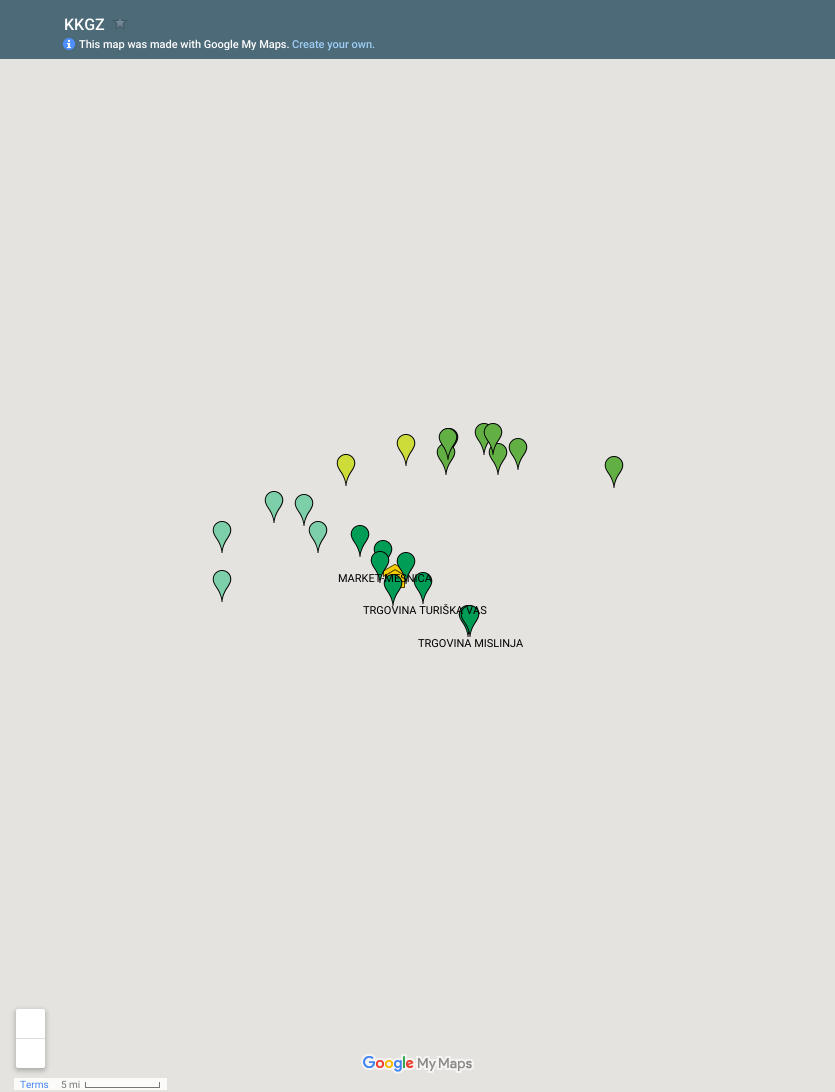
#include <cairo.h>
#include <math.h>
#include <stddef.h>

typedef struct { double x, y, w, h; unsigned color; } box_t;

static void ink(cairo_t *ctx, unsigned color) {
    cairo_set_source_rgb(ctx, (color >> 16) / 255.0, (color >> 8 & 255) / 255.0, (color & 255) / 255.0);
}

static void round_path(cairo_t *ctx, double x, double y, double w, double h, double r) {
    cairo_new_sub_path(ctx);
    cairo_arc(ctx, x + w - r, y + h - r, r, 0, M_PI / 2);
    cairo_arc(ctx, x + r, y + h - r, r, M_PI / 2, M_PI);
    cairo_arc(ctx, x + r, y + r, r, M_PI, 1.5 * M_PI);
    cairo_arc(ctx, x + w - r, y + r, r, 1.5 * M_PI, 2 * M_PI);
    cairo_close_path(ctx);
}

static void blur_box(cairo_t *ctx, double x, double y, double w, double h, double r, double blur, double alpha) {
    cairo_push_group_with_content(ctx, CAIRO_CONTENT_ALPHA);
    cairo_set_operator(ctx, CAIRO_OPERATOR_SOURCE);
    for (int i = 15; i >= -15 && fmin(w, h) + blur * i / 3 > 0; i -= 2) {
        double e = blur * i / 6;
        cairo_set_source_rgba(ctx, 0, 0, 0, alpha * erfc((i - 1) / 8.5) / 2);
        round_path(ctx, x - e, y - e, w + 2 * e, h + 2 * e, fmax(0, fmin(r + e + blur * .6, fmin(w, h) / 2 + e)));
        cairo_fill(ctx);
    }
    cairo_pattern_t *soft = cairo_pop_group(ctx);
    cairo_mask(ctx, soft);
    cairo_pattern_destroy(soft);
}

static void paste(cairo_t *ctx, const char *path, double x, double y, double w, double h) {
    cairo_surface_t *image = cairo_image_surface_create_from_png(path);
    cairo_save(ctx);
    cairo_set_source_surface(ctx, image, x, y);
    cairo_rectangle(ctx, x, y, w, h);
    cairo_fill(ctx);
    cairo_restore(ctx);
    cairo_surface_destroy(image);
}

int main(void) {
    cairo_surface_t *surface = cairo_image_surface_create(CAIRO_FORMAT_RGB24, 835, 1092);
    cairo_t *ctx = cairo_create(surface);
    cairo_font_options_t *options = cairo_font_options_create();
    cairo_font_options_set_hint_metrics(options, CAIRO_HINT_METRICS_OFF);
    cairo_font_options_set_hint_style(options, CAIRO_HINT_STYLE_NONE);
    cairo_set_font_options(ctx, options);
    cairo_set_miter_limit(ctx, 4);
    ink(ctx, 0xE5E3DF);
    cairo_paint(ctx);
    ink(ctx, 0x4D6A79);
    cairo_rectangle(ctx, 0, 0, 835, 59);
    cairo_fill(ctx);
    cairo_select_font_face(ctx, "Roboto Medium", CAIRO_FONT_SLANT_NORMAL, CAIRO_FONT_WEIGHT_NORMAL);
    cairo_set_font_size(ctx, 16);
    ink(ctx, 0xFFFFFF);
    cairo_move_to(ctx, 64, 30);
    cairo_show_text(ctx, "KKGZ");
    paste(ctx, "media/1.png", 112, 19, 16, 11);
    paste(ctx, "media/2.png", 63, 38, 12, 12);
    cairo_save(ctx);
    cairo_rectangle(ctx, 20, 11, 678, 39);
    cairo_clip(ctx);
    cairo_set_font_size(ctx, 11);
    cairo_move_to(ctx, 79, 48);
    cairo_show_text(ctx, "This map was made with Google My Maps.");
    cairo_restore(ctx);
    cairo_set_font_size(ctx, 11);
    ink(ctx, 0x9ECEF5);
    cairo_move_to(ctx, 292, 48);
    cairo_show_text(ctx, "Create your own.");
    paste(ctx, "media/7.png", 439, 428, 20, 21);
    paste(ctx, "media/9.png", 436, 443, 20, 32);
    paste(ctx, "media/3.png", 438, 428, 20, 32);
    paste(ctx, "media/8.png", 488, 443, 20, 32);
    paste(ctx, "media/4.png", 474, 423, 16, 32);
    paste(ctx, "media/5.png", 483, 423, 20, 32);
    paste(ctx, "media/6.png", 396, 434, 20, 32);
    paste(ctx, "media/8.png", 508, 438, 20, 32);
    paste(ctx, "media/6.png", 336, 454, 20, 32);
    paste(ctx, "media/8.png", 604, 456, 20, 32);
    paste(ctx, "media/10.png", 264, 491, 20, 32);
    paste(ctx, "media/10.png", 308, 521, 20, 32);
    paste(ctx, "media/11.png", 294, 494, 20, 32);
    paste(ctx, "media/10.png", 212, 521, 20, 32);
    paste(ctx, "media/12.png", 350, 525, 20, 32);
    paste(ctx, "media/16.png", 383, 564, 24, 24);
    paste(ctx, "media/13.png", 373, 540, 20, 32);
    paste(ctx, "media/15.png", 396, 552, 20, 32);
    paste(ctx, "media/17.png", 383, 574, 20, 32);
    paste(ctx, "media/14.png", 370, 551, 20, 32);
    paste(ctx, "media/10.png", 212, 570, 20, 32);
    paste(ctx, "media/12.png", 413, 572, 20, 32);
    cairo_select_font_face(ctx, "Roboto", CAIRO_FONT_SLANT_NORMAL, CAIRO_FONT_WEIGHT_NORMAL);
    ink(ctx, 0x000000);
    cairo_move_to(ctx, 338, 582);
    cairo_show_text(ctx, "MARKET-MESNICA");
    paste(ctx, "media/18.png", 458, 605, 19, 32);
    paste(ctx, "media/19.png", 460, 605, 20, 32);
    cairo_move_to(ctx, 363, 614);
    cairo_show_text(ctx, "TRGOVINA TURIŠKA VAS");
    cairo_move_to(ctx, 418, 647);
    cairo_show_text(ctx, "TRGOVINA MISLINJA");
    ink(ctx, 0x000000);
    blur_box(ctx, 16, 1011, 29, 59, 2, 3, 0.3);
    ink(ctx, 0xFFFFFF);
    round_path(ctx, 16, 1009, 29, 59, 2);
    cairo_fill(ctx);
    ink(ctx, 0xDDDDDD);
    cairo_rectangle(ctx, 16, 1038, 29, 1);
    cairo_fill(ctx);
    paste(ctx, "media/20.png", 361, 1054, 113, 20);
    ink(ctx, 0xFBFBFA);
    cairo_rectangle(ctx, 14, 1078, 153, 12);
    cairo_fill(ctx);
    cairo_set_font_size(ctx, 10);
    ink(ctx, 0x4285F4);
    cairo_move_to(ctx, 20, 1088);
    cairo_show_text(ctx, "Terms");
    ink(ctx, 0x777777);
    cairo_move_to(ctx, 61, 1088);
    cairo_show_text(ctx, "5 mi");
    {
        static const box_t items[] = {
            {85, 1087, 75, 1, 0x777777},
            {85, 1082, 1, 6, 0x777777},
            {159, 1082, 1, 6, 0x777777},
        };
        for (size_t i = 0; i < sizeof items / sizeof *items; i++) {
            ink(ctx, items[i].color);
            cairo_rectangle(ctx, items[i].x, items[i].y, items[i].w, items[i].h);
            cairo_fill(ctx);
        }
    }
    cairo_surface_write_to_png(surface, "image.png");
    cairo_font_options_destroy(options);
    cairo_destroy(ctx);
    cairo_surface_destroy(surface);
    return 0;
}
